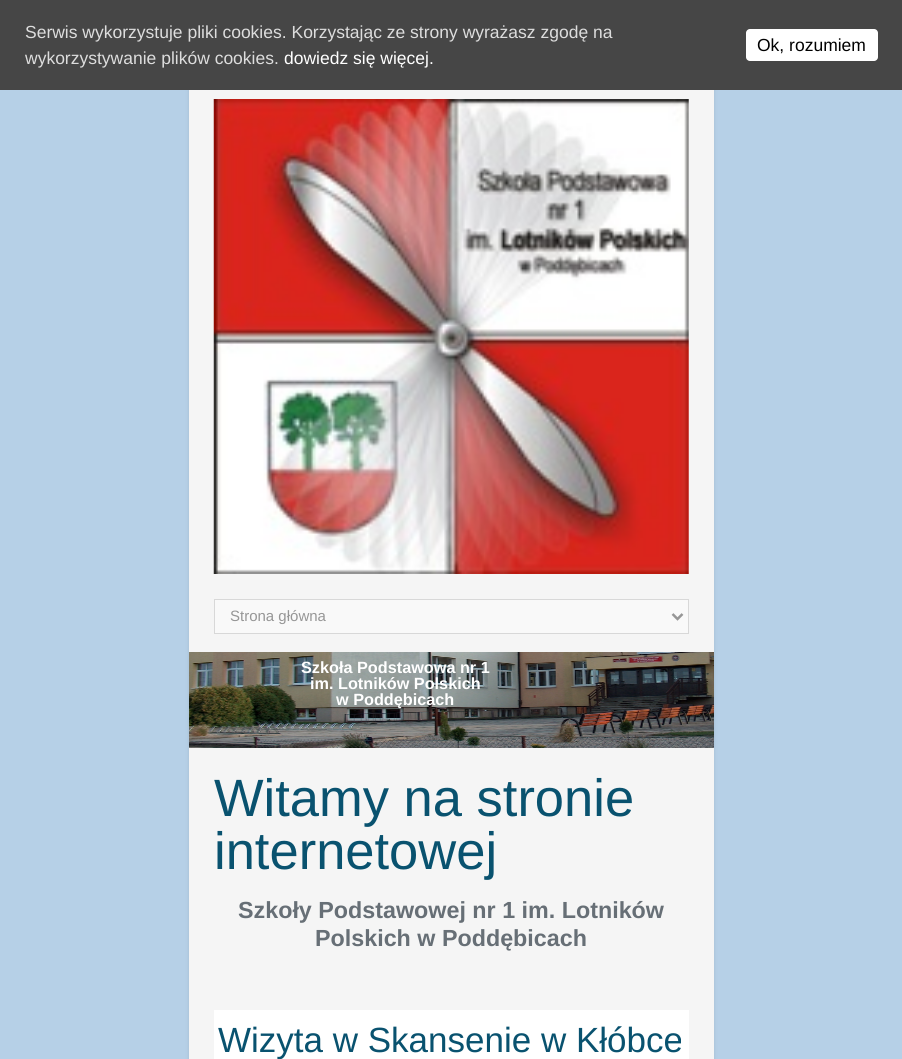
#include <cairo.h>
#include <math.h>
#include <stddef.h>

typedef struct { double x, y; const char *s; } line_t;

static void ink(cairo_t *ctx, unsigned color) {
    cairo_set_source_rgb(ctx, (color >> 16) / 255.0, (color >> 8 & 255) / 255.0, (color & 255) / 255.0);
}

static void round_path(cairo_t *ctx, double x, double y, double w, double h, double r) {
    cairo_new_sub_path(ctx);
    cairo_arc(ctx, x + w - r, y + h - r, r, 0, M_PI / 2);
    cairo_arc(ctx, x + r, y + h - r, r, M_PI / 2, M_PI);
    cairo_arc(ctx, x + r, y + r, r, M_PI, 1.5 * M_PI);
    cairo_arc(ctx, x + w - r, y + r, r, 1.5 * M_PI, 2 * M_PI);
    cairo_close_path(ctx);
}

static void blur_box(cairo_t *ctx, double x, double y, double w, double h, double r, double blur, double alpha) {
    cairo_push_group_with_content(ctx, CAIRO_CONTENT_ALPHA);
    cairo_set_operator(ctx, CAIRO_OPERATOR_SOURCE);
    for (int i = 15; i >= -15 && fmin(w, h) + blur * i / 3 > 0; i -= 2) {
        double e = blur * i / 6;
        cairo_set_source_rgba(ctx, 0, 0, 0, alpha * erfc((i - 1) / 8.5) / 2);
        round_path(ctx, x - e, y - e, w + 2 * e, h + 2 * e, fmax(0, fmin(r + e + blur * .6, fmin(w, h) / 2 + e)));
        cairo_fill(ctx);
    }
    cairo_pattern_t *soft = cairo_pop_group(ctx);
    cairo_mask(ctx, soft);
    cairo_pattern_destroy(soft);
}

static void paste(cairo_t *ctx, const char *path, double x, double y, double w, double h) {
    cairo_surface_t *image = cairo_image_surface_create_from_png(path);
    cairo_save(ctx);
    cairo_set_source_surface(ctx, image, x, y);
    cairo_rectangle(ctx, x, y, w, h);
    cairo_fill(ctx);
    cairo_restore(ctx);
    cairo_surface_destroy(image);
}

int main(void) {
    cairo_surface_t *surface = cairo_image_surface_create(CAIRO_FORMAT_RGB24, 902, 1059);
    cairo_t *ctx = cairo_create(surface);
    cairo_font_options_t *options = cairo_font_options_create();
    cairo_font_options_set_hint_metrics(options, CAIRO_HINT_METRICS_OFF);
    cairo_font_options_set_hint_style(options, CAIRO_HINT_STYLE_NONE);
    cairo_set_font_options(ctx, options);
    cairo_set_miter_limit(ctx, 4);
    ink(ctx, 0xB6D0E7);
    cairo_paint(ctx);
    ink(ctx, 0x000000);
    blur_box(ctx, 189, 61, 525, 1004, 0, 2, 0.1);
    ink(ctx, 0x464646);
    cairo_rectangle(ctx, 0, 0, 902, 90);
    cairo_fill(ctx);
    cairo_select_font_face(ctx, "Liberation Sans", CAIRO_FONT_SLANT_NORMAL, CAIRO_FONT_WEIGHT_NORMAL);
    cairo_set_font_size(ctx, 17.5);
    ink(ctx, 0xDDDDDD);
    cairo_move_to(ctx, 25, 38);
    cairo_show_text(ctx, "Serwis wykorzystuje pliki cookies. Korzystając ze strony wyrażasz zgodę na");
    cairo_move_to(ctx, 25, 64);
    cairo_show_text(ctx, "wykorzystywanie plików cookies.");
    ink(ctx, 0xFFFFFF);
    cairo_move_to(ctx, 284, 64);
    cairo_show_text(ctx, "dowiedz się więcej.");
    round_path(ctx, 746, 29, 132, 32, 4);
    cairo_fill(ctx);
    ink(ctx, 0x000000);
    cairo_move_to(ctx, 757, 51);
    cairo_show_text(ctx, "Ok, rozumiem");
    ink(ctx, 0xF5F5F5);
    cairo_rectangle(ctx, 189, 90, 525, 969);
    cairo_fill(ctx);
    paste(ctx, "media/1.png", 213, 99, 476, 475);
    ink(ctx, 0xF9F9F9);
    cairo_rectangle(ctx, 214.5, 599.5, 474, 34);
    cairo_fill_preserve(ctx);
    ink(ctx, 0xD8D8D8);
    cairo_set_line_width(ctx, 1);
    cairo_stroke(ctx);
    cairo_new_path(ctx);
    cairo_move_to(ctx, 672.5, 614);
    cairo_line_to(ctx, 677.5, 619);
    cairo_line_to(ctx, 682.5, 614);
    ink(ctx, 0x969696);
    cairo_set_line_width(ctx, 2.5);
    cairo_stroke(ctx);
    cairo_set_font_size(ctx, 15);
    cairo_move_to(ctx, 230, 621);
    cairo_show_text(ctx, "Strona główna");
    paste(ctx, "media/2.png", 189, 652, 525, 96);
    cairo_select_font_face(ctx, "Liberation Sans", CAIRO_FONT_SLANT_NORMAL, CAIRO_FONT_WEIGHT_BOLD);
    cairo_set_font_size(ctx, 16.25);
    ink(ctx, 0xFFFFFF);
    {
        static const line_t items[] = {
            {301, 673, "Szkoła Podstawowa nr 1"},
            {310, 689, "im. Lotników Polskich"},
            {336, 705, "w Poddębicach"},
        };
        for (size_t i = 0; i < sizeof items / sizeof *items; i++) {
            cairo_move_to(ctx, items[i].x, items[i].y);
            cairo_show_text(ctx, items[i].s);
        }
    }
    cairo_select_font_face(ctx, "Liberation Sans", CAIRO_FONT_SLANT_NORMAL, CAIRO_FONT_WEIGHT_NORMAL);
    cairo_set_font_size(ctx, 52.5);
    ink(ctx, 0x09526F);
    cairo_move_to(ctx, 214, 816);
    cairo_show_text(ctx, "Witamy na stronie");
    cairo_move_to(ctx, 214, 869);
    cairo_show_text(ctx, "internetowej");
    cairo_select_font_face(ctx, "Liberation Sans", CAIRO_FONT_SLANT_NORMAL, CAIRO_FONT_WEIGHT_BOLD);
    cairo_set_font_size(ctx, 23.3);
    ink(ctx, 0x676F76);
    cairo_move_to(ctx, 238, 918);
    cairo_show_text(ctx, "Szkoły Podstawowej nr 1 im. Lotników");
    cairo_move_to(ctx, 315, 946);
    cairo_show_text(ctx, "Polskich w Poddębicach");
    ink(ctx, 0xFFFFFF);
    cairo_rectangle(ctx, 214, 1010, 475, 49);
    cairo_fill(ctx);
    cairo_select_font_face(ctx, "Liberation Sans", CAIRO_FONT_SLANT_NORMAL, CAIRO_FONT_WEIGHT_NORMAL);
    cairo_set_font_size(ctx, 35);
    ink(ctx, 0x09526F);
    cairo_move_to(ctx, 218, 1052);
    cairo_show_text(ctx, "Wizyta w Skansenie w Kłóbce");
    cairo_surface_write_to_png(surface, "image.png");
    cairo_font_options_destroy(options);
    cairo_destroy(ctx);
    cairo_surface_destroy(surface);
    return 0;
}
